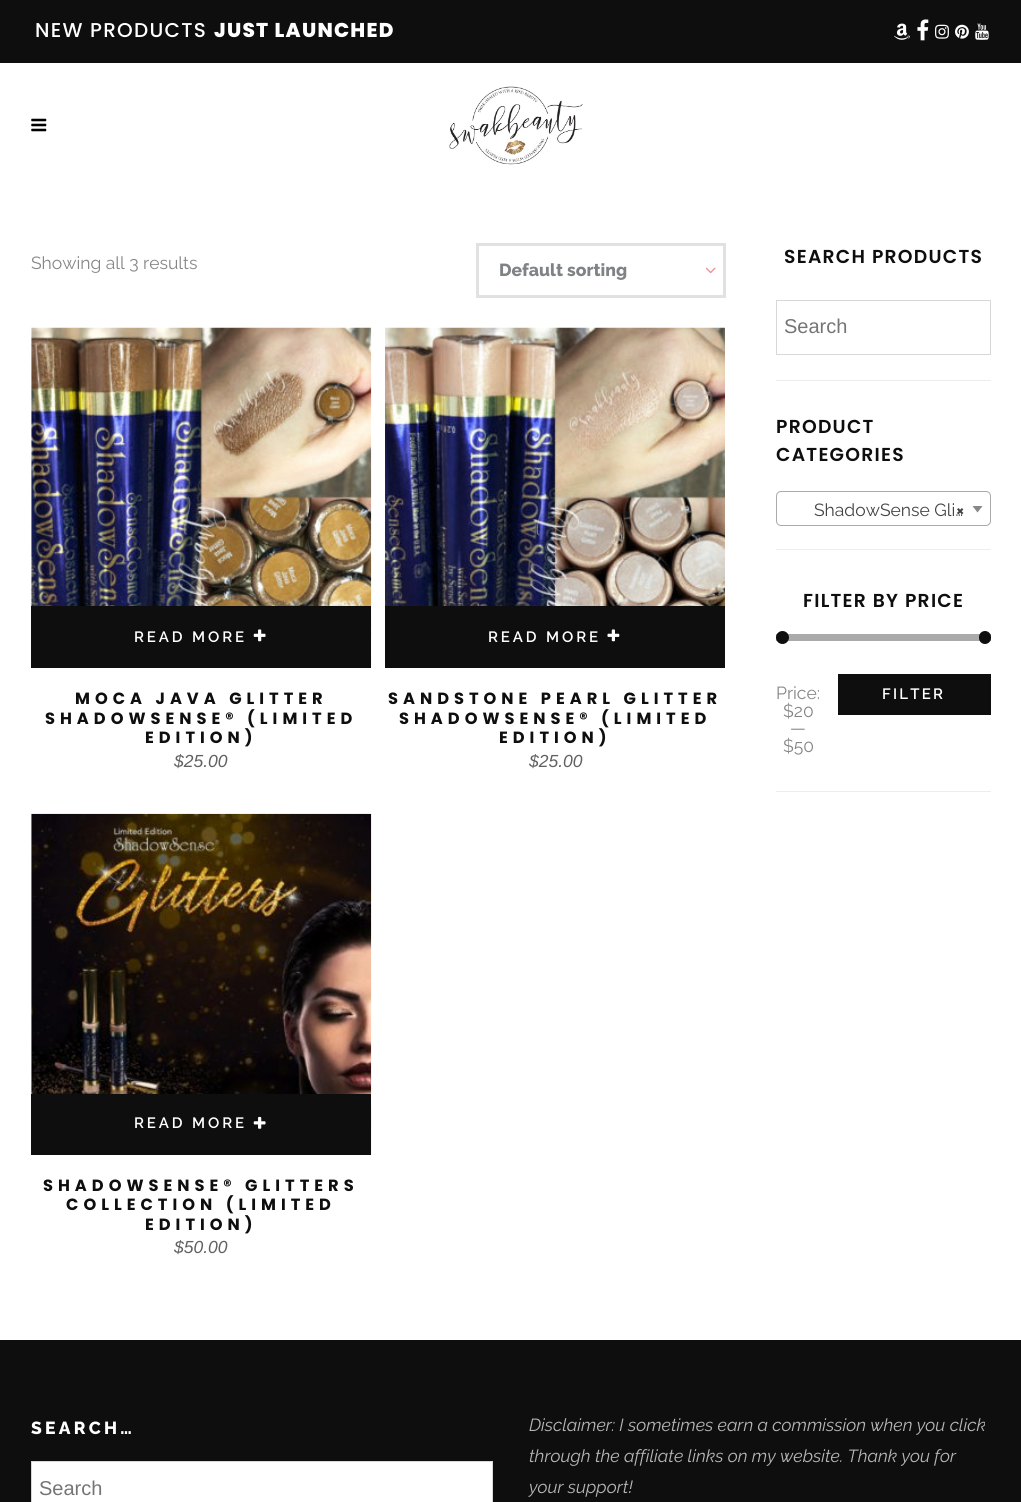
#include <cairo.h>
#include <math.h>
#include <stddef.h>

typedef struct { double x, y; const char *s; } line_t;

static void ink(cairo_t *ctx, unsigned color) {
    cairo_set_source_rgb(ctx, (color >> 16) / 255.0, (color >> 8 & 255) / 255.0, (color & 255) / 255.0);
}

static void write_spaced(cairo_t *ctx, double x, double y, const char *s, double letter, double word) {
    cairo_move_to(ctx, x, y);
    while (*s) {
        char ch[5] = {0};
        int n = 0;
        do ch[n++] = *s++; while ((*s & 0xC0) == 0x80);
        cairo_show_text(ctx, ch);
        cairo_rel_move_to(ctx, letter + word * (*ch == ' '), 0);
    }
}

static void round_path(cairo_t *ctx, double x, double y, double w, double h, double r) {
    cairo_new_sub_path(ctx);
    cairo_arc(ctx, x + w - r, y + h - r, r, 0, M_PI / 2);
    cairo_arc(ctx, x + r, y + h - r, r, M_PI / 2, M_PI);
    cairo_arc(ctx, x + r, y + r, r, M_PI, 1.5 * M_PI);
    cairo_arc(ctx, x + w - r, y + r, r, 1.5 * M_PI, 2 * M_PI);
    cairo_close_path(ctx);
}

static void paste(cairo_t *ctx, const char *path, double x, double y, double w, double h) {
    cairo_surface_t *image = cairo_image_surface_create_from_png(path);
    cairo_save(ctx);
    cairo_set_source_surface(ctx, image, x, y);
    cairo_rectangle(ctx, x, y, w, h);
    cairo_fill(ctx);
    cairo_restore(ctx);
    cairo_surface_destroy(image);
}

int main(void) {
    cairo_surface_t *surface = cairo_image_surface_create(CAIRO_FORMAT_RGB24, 1021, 1502);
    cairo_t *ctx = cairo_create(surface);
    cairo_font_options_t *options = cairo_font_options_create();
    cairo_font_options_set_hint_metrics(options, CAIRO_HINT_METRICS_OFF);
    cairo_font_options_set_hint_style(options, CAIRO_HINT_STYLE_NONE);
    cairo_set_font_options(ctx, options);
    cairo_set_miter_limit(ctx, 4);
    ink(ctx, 0xFFFFFF);
    cairo_paint(ctx);
    ink(ctx, 0x0E0E0E);
    cairo_rectangle(ctx, 0, 0, 1021, 63);
    cairo_fill(ctx);
    cairo_select_font_face(ctx, "Poppins Medium", CAIRO_FONT_SLANT_NORMAL, CAIRO_FONT_WEIGHT_NORMAL);
    cairo_set_font_size(ctx, 20);
    ink(ctx, 0xFFFFFF);
    write_spaced(ctx, 35, 37, "NEW PRODUCTS", 1.25, 0);
    cairo_select_font_face(ctx, "Poppins ExtraBold", CAIRO_FONT_SLANT_NORMAL, CAIRO_FONT_WEIGHT_NORMAL);
    write_spaced(ctx, 214, 37, "JUST LAUNCHED", 1.25, 0);
    paste(ctx, "media/1.png", 894, 23, 16, 17);
    paste(ctx, "media/2.png", 917, 19, 12, 22);
    paste(ctx, "media/3.png", 935, 24, 14, 15);
    paste(ctx, "media/4.png", 955, 24, 14, 15);
    paste(ctx, "media/5.png", 975, 23, 14, 17);
    paste(ctx, "media/6.png", 31, 118, 16, 14);
    paste(ctx, "media/7.png", 449, 86, 134, 79);
    cairo_select_font_face(ctx, "Raleway", CAIRO_FONT_SLANT_NORMAL, CAIRO_FONT_WEIGHT_NORMAL);
    cairo_set_font_size(ctx, 17.5);
    ink(ctx, 0x868686);
    cairo_move_to(ctx, 31, 269);
    cairo_show_text(ctx, "Showing all 3 results");
    cairo_rectangle(ctx, 477.5, 244.5, 247, 52);
    ink(ctx, 0xE1E1E1);
    cairo_set_line_width(ctx, 3);
    cairo_stroke(ctx);
    cairo_select_font_face(ctx, "Raleway ExtraBold", CAIRO_FONT_SLANT_NORMAL, CAIRO_FONT_WEIGHT_NORMAL);
    ink(ctx, 0x7F8385);
    cairo_move_to(ctx, 499, 276);
    cairo_show_text(ctx, "Default sorting");
    paste(ctx, "media/8.png", 705, 267, 11, 7);
    paste(ctx, "media/9.png", 31, 327, 341, 340);
    ink(ctx, 0x0E0E0E);
    cairo_rectangle(ctx, 31, 606, 340, 62);
    cairo_fill(ctx);
    cairo_select_font_face(ctx, "Raleway SemiBold", CAIRO_FONT_SLANT_NORMAL, CAIRO_FONT_WEIGHT_NORMAL);
    cairo_set_font_size(ctx, 15);
    ink(ctx, 0xFFFFFF);
    write_spaced(ctx, 134, 642, "READ MORE", 2.9, 0);
    paste(ctx, "media/10.png", 253, 629, 13, 13);
    cairo_select_font_face(ctx, "Poppins", CAIRO_FONT_SLANT_NORMAL, CAIRO_FONT_WEIGHT_BOLD);
    cairo_set_font_size(ctx, 16.25);
    ink(ctx, 0x0E0E0E);
    {
        static const line_t items[] = {
            {75, 704, "MOCA JAVA GLITTER"},
            {45, 724, "SHADOWSENSE® (LIMITED"},
            {145, 743, "EDITION)"},
        };
        for (size_t i = 0; i < sizeof items / sizeof *items; i++) {
            write_spaced(ctx, items[i].x, items[i].y, items[i].s, 5, 0);
        }
    }
    cairo_select_font_face(ctx, "Liberation Sans", CAIRO_FONT_SLANT_ITALIC, CAIRO_FONT_WEIGHT_NORMAL);
    cairo_set_font_size(ctx, 17.5);
    ink(ctx, 0x616161);
    cairo_move_to(ctx, 174, 767);
    cairo_show_text(ctx, "$25.00");
    paste(ctx, "media/11.png", 385, 327, 340, 279);
    ink(ctx, 0x0E0E0E);
    cairo_rectangle(ctx, 385, 606, 340, 62);
    cairo_fill(ctx);
    cairo_select_font_face(ctx, "Raleway SemiBold", CAIRO_FONT_SLANT_NORMAL, CAIRO_FONT_WEIGHT_NORMAL);
    cairo_set_font_size(ctx, 15);
    ink(ctx, 0xFFFFFF);
    write_spaced(ctx, 488, 642, "READ MORE", 2.9, 0);
    paste(ctx, "media/12.png", 607, 629, 13, 13);
    cairo_select_font_face(ctx, "Poppins", CAIRO_FONT_SLANT_NORMAL, CAIRO_FONT_WEIGHT_BOLD);
    cairo_set_font_size(ctx, 16.25);
    ink(ctx, 0x0E0E0E);
    {
        static const line_t items[] = {
            {388, 704, "SANDSTONE PEARL GLITTER"},
            {399, 724, "SHADOWSENSE® (LIMITED"},
            {499, 743, "EDITION)"},
        };
        for (size_t i = 0; i < sizeof items / sizeof *items; i++) {
            write_spaced(ctx, items[i].x, items[i].y, items[i].s, 5, 0);
        }
    }
    cairo_select_font_face(ctx, "Liberation Sans", CAIRO_FONT_SLANT_ITALIC, CAIRO_FONT_WEIGHT_NORMAL);
    cairo_set_font_size(ctx, 17.5);
    ink(ctx, 0x616161);
    cairo_move_to(ctx, 529, 767);
    cairo_show_text(ctx, "$25.00");
    paste(ctx, "media/13.png", 31, 813, 341, 342);
    ink(ctx, 0x0E0E0E);
    cairo_rectangle(ctx, 31, 1094, 340, 61);
    cairo_fill(ctx);
    cairo_select_font_face(ctx, "Raleway SemiBold", CAIRO_FONT_SLANT_NORMAL, CAIRO_FONT_WEIGHT_NORMAL);
    cairo_set_font_size(ctx, 15);
    ink(ctx, 0xFFFFFF);
    write_spaced(ctx, 134, 1128, "READ MORE", 2.9, 0);
    paste(ctx, "media/14.png", 253, 1116, 13, 13);
    cairo_select_font_face(ctx, "Poppins", CAIRO_FONT_SLANT_NORMAL, CAIRO_FONT_WEIGHT_BOLD);
    cairo_set_font_size(ctx, 16.25);
    ink(ctx, 0x0E0E0E);
    {
        static const line_t items[] = {
            {43, 1191, "SHADOWSENSE® GLITTERS"},
            {66, 1210, "COLLECTION (LIMITED"},
            {145, 1230, "EDITION)"},
        };
        for (size_t i = 0; i < sizeof items / sizeof *items; i++) {
            write_spaced(ctx, items[i].x, items[i].y, items[i].s, 5, 0);
        }
    }
    cairo_select_font_face(ctx, "Liberation Sans", CAIRO_FONT_SLANT_ITALIC, CAIRO_FONT_WEIGHT_NORMAL);
    cairo_set_font_size(ctx, 17.5);
    ink(ctx, 0x616161);
    cairo_move_to(ctx, 174, 1253);
    cairo_show_text(ctx, "$50.00");
    cairo_select_font_face(ctx, "Poppins SemiBold", CAIRO_FONT_SLANT_NORMAL, CAIRO_FONT_WEIGHT_NORMAL);
    cairo_set_font_size(ctx, 18.75);
    ink(ctx, 0x0E0E0E);
    write_spaced(ctx, 784, 263, "SEARCH PRODUCTS", 1.25, 0);
    cairo_rectangle(ctx, 776.5, 300.5, 214, 54);
    ink(ctx, 0xD8D8D8);
    cairo_set_line_width(ctx, 1);
    cairo_stroke(ctx);
    cairo_select_font_face(ctx, "Liberation Sans", CAIRO_FONT_SLANT_NORMAL, CAIRO_FONT_WEIGHT_NORMAL);
    cairo_set_font_size(ctx, 20);
    ink(ctx, 0x757575);
    cairo_move_to(ctx, 784, 333);
    cairo_show_text(ctx, "Search");
    ink(ctx, 0xEDEDED);
    cairo_rectangle(ctx, 776, 380, 215, 1);
    cairo_fill(ctx);
    cairo_select_font_face(ctx, "Poppins SemiBold", CAIRO_FONT_SLANT_NORMAL, CAIRO_FONT_WEIGHT_NORMAL);
    cairo_set_font_size(ctx, 18.75);
    ink(ctx, 0x0E0E0E);
    write_spaced(ctx, 776, 433, "PRODUCT", 1.25, 0);
    write_spaced(ctx, 776, 461, "CATEGORIES", 1.25, 0);
    round_path(ctx, 776.5, 491.5, 214, 34, 4.5);
    ink(ctx, 0xAAAAAA);
    cairo_stroke(ctx);
    cairo_select_font_face(ctx, "Raleway", CAIRO_FONT_SLANT_NORMAL, CAIRO_FONT_WEIGHT_NORMAL);
    cairo_set_font_size(ctx, 17.5);
    ink(ctx, 0x444444);
    cairo_move_to(ctx, 814, 516);
    cairo_show_text(ctx, "ShadowSense Gli…");
    cairo_select_font_face(ctx, "Raleway", CAIRO_FONT_SLANT_NORMAL, CAIRO_FONT_WEIGHT_BOLD);
    cairo_move_to(ctx, 956, 516);
    cairo_show_text(ctx, "×");
    ink(ctx, 0x888888);
    cairo_new_path(ctx);
    cairo_move_to(ctx, 972.5, 506);
    cairo_line_to(ctx, 982.5, 506);
    cairo_line_to(ctx, 977.5, 512.5);
    cairo_close_path(ctx);
    cairo_fill(ctx);
    ink(ctx, 0xEDEDED);
    cairo_rectangle(ctx, 776, 549, 215, 1);
    cairo_fill(ctx);
    cairo_select_font_face(ctx, "Poppins SemiBold", CAIRO_FONT_SLANT_NORMAL, CAIRO_FONT_WEIGHT_NORMAL);
    cairo_set_font_size(ctx, 18.75);
    ink(ctx, 0x0E0E0E);
    write_spaced(ctx, 803, 607, "FILTER BY PRICE", 1.25, 0);
    ink(ctx, 0xAAAAAA);
    cairo_rectangle(ctx, 776, 634, 215, 7);
    cairo_fill(ctx);
    ink(ctx, 0x0E0E0E);
    cairo_arc(ctx, 782.5, 637.5, 6.5, 0, 2 * M_PI);
    cairo_fill(ctx);
    round_path(ctx, 979, 631, 12, 13, 6);
    cairo_fill(ctx);
    cairo_select_font_face(ctx, "Raleway", CAIRO_FONT_SLANT_NORMAL, CAIRO_FONT_WEIGHT_NORMAL);
    cairo_set_font_size(ctx, 17.5);
    ink(ctx, 0x868686);
    {
        static const line_t items[] = {
            {776, 699, "Price:"},
            {783, 717, "$20"},
            {790, 734, "—"},
            {783, 752, "$50"},
        };
        for (size_t i = 0; i < sizeof items / sizeof *items; i++) {
            cairo_move_to(ctx, items[i].x, items[i].y);
            cairo_show_text(ctx, items[i].s);
        }
    }
    ink(ctx, 0x0E0E0E);
    cairo_rectangle(ctx, 838, 674, 153, 41);
    cairo_fill(ctx);
    cairo_select_font_face(ctx, "Raleway SemiBold", CAIRO_FONT_SLANT_NORMAL, CAIRO_FONT_WEIGHT_NORMAL);
    cairo_set_font_size(ctx, 15);
    ink(ctx, 0xFFFFFF);
    write_spaced(ctx, 882, 699, "FILTER", 2.25, 0);
    ink(ctx, 0xEDEDED);
    cairo_rectangle(ctx, 776, 791, 215, 1);
    cairo_fill(ctx);
    ink(ctx, 0x0E0E0E);
    cairo_rectangle(ctx, 0, 1340, 1021, 162);
    cairo_fill(ctx);
    cairo_select_font_face(ctx, "Raleway ExtraBold", CAIRO_FONT_SLANT_NORMAL, CAIRO_FONT_WEIGHT_NORMAL);
    cairo_set_font_size(ctx, 17.5);
    ink(ctx, 0xFFFFFF);
    write_spaced(ctx, 31, 1434, "SEARCH…", 3.25, 0);
    cairo_rectangle(ctx, 31.5, 1461.5, 461, 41);
    cairo_fill_preserve(ctx);
    ink(ctx, 0xD8D8D8);
    cairo_stroke(ctx);
    cairo_select_font_face(ctx, "Liberation Sans", CAIRO_FONT_SLANT_NORMAL, CAIRO_FONT_WEIGHT_NORMAL);
    cairo_set_font_size(ctx, 20);
    ink(ctx, 0x757575);
    cairo_move_to(ctx, 39, 1495);
    cairo_show_text(ctx, "Search");
    cairo_select_font_face(ctx, "Raleway", CAIRO_FONT_SLANT_ITALIC, CAIRO_FONT_WEIGHT_NORMAL);
    cairo_set_font_size(ctx, 17.5);
    ink(ctx, 0xB7B7B7);
    {
        static const line_t items[] = {
            {529, 1431, "Disclaimer: I sometimes earn a commission when you click"},
            {529, 1462, "through the affiliate links on my website. Thank you for"},
            {529, 1493, "your support!"},
        };
        for (size_t i = 0; i < sizeof items / sizeof *items; i++) {
            cairo_move_to(ctx, items[i].x, items[i].y);
            cairo_show_text(ctx, items[i].s);
        }
    }
    cairo_surface_write_to_png(surface, "image.png");
    cairo_font_options_destroy(options);
    cairo_destroy(ctx);
    cairo_surface_destroy(surface);
    return 0;
}
